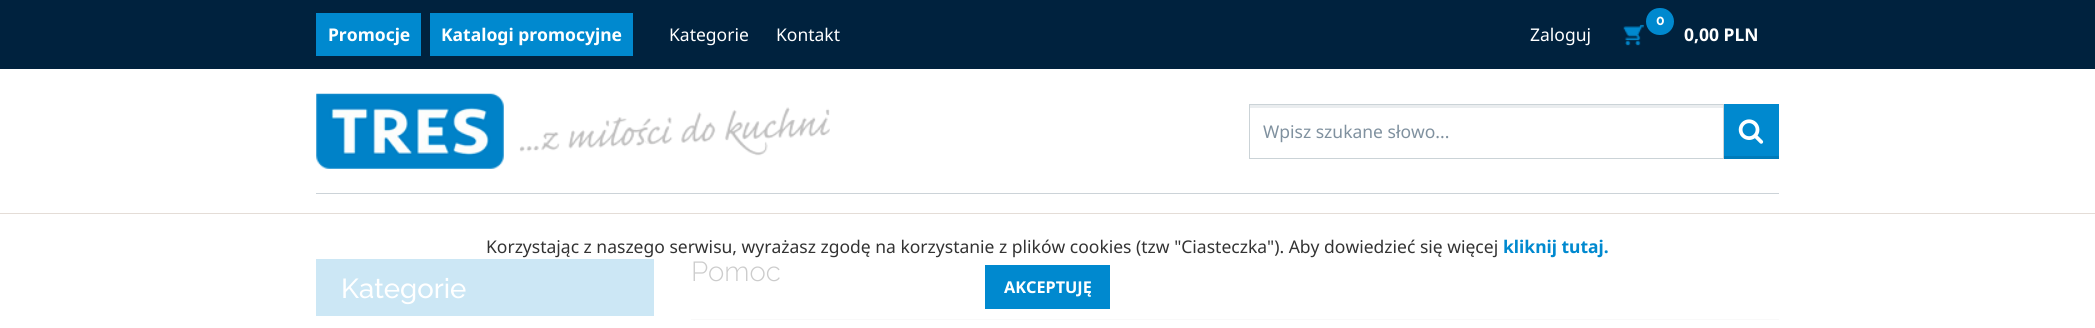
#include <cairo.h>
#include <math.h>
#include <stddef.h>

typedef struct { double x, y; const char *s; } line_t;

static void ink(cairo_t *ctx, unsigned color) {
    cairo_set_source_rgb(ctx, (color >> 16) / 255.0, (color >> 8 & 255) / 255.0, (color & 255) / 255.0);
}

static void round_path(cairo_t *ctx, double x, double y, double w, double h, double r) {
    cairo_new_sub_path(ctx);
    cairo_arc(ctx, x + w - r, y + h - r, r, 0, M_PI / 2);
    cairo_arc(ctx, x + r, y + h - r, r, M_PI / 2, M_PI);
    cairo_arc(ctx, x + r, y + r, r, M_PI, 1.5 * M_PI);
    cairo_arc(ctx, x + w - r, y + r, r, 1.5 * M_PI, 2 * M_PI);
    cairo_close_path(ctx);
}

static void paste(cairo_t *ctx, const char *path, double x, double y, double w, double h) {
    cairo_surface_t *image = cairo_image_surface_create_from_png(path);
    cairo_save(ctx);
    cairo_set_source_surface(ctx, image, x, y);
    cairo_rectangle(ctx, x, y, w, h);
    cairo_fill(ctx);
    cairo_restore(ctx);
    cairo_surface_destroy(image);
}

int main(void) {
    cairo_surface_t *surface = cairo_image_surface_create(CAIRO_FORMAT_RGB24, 2095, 328);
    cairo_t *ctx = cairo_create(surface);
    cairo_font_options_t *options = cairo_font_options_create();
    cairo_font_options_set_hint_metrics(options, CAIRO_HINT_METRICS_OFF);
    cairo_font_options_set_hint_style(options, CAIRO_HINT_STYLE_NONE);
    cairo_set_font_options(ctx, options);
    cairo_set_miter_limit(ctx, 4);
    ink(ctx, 0xFFFFFF);
    cairo_paint(ctx);
    ink(ctx, 0x00223E);
    cairo_rectangle(ctx, 0, 0, 2095, 69);
    cairo_fill(ctx);
    ink(ctx, 0x0089CF);
    cairo_rectangle(ctx, 316, 13, 105, 43);
    cairo_fill(ctx);
    cairo_select_font_face(ctx, "Noto Sans", CAIRO_FONT_SLANT_NORMAL, CAIRO_FONT_WEIGHT_BOLD);
    cairo_set_font_size(ctx, 17.5);
    ink(ctx, 0xFFFFFF);
    cairo_move_to(ctx, 328, 41);
    cairo_show_text(ctx, "Promocje");
    ink(ctx, 0x0089CF);
    cairo_rectangle(ctx, 430, 13, 203, 43);
    cairo_fill(ctx);
    ink(ctx, 0xFFFFFF);
    cairo_move_to(ctx, 441, 41);
    cairo_show_text(ctx, "Katalogi promocyjne");
    cairo_select_font_face(ctx, "Noto Sans", CAIRO_FONT_SLANT_NORMAL, CAIRO_FONT_WEIGHT_NORMAL);
    {
        static const line_t items[] = {
            {669, 41, "Kategorie"},
            {776, 41, "Kontakt"},
            {1530, 41, "Zaloguj"},
        };
        for (size_t i = 0; i < sizeof items / sizeof *items; i++) {
            cairo_move_to(ctx, items[i].x, items[i].y);
            cairo_show_text(ctx, items[i].s);
        }
    }
    ink(ctx, 0x0089CF);
    round_path(ctx, 1646, 8, 28, 27, 13.5);
    cairo_fill(ctx);
    cairo_select_font_face(ctx, "Raleway", CAIRO_FONT_SLANT_NORMAL, CAIRO_FONT_WEIGHT_BOLD);
    cairo_set_font_size(ctx, 14);
    ink(ctx, 0xFFFFFF);
    cairo_move_to(ctx, 1656, 25);
    cairo_show_text(ctx, "0");
    paste(ctx, "media/1.png", 1623, 24, 21, 22);
    cairo_select_font_face(ctx, "Noto Sans", CAIRO_FONT_SLANT_NORMAL, CAIRO_FONT_WEIGHT_BOLD);
    cairo_set_font_size(ctx, 17.5);
    cairo_move_to(ctx, 1684, 41);
    cairo_show_text(ctx, "0,00 PLN");
    ink(ctx, 0xCCD3D8);
    cairo_rectangle(ctx, 316, 193, 1463, 1);
    cairo_fill(ctx);
    paste(ctx, "media/2.png", 316, 93, 514, 76);
    ink(ctx, 0xEAEDEF);
    cairo_rectangle(ctx, 1250, 105, 473, 3);
    cairo_fill(ctx);
    cairo_rectangle(ctx, 1249.5, 104.5, 474, 54);
    ink(ctx, 0xCBD3D7);
    cairo_set_line_width(ctx, 1);
    cairo_stroke(ctx);
    cairo_select_font_face(ctx, "Noto Sans", CAIRO_FONT_SLANT_NORMAL, CAIRO_FONT_WEIGHT_NORMAL);
    ink(ctx, 0x80919F);
    cairo_move_to(ctx, 1263, 138);
    cairo_show_text(ctx, "Wpisz szukane słowo...");
    ink(ctx, 0x0089CF);
    cairo_rectangle(ctx, 1724, 104, 55, 52);
    cairo_fill(ctx);
    ink(ctx, 0x007BBA);
    cairo_rectangle(ctx, 1724, 156, 55, 3);
    cairo_fill(ctx);
    paste(ctx, "media/3.png", 1738, 119, 26, 25);
    ink(ctx, 0xE4DDD7);
    cairo_rectangle(ctx, 0, 213, 2095, 1);
    cairo_fill(ctx);
    ink(ctx, 0x333333);
    cairo_move_to(ctx, 486, 253);
    cairo_show_text(ctx, "Korzystając z naszego serwisu, wyrażasz zgodę na korzystanie z plików cookies (tzw \"Ciasteczka\"). Aby dowiedzieć się więcej");
    cairo_select_font_face(ctx, "Noto Sans", CAIRO_FONT_SLANT_NORMAL, CAIRO_FONT_WEIGHT_BOLD);
    ink(ctx, 0x0089CF);
    cairo_move_to(ctx, 1503, 253);
    cairo_show_text(ctx, "kliknij tutaj.");
    cairo_rectangle(ctx, 985, 265, 125, 44);
    cairo_fill(ctx);
    cairo_set_font_size(ctx, 16.25);
    ink(ctx, 0xFFFFFF);
    cairo_move_to(ctx, 1004, 293);
    cairo_show_text(ctx, "AKCEPTUJĘ");
    ink(ctx, 0xF9F9F9);
    cairo_rectangle(ctx, 691, 319, 1088, 1);
    cairo_fill(ctx);
    cairo_select_font_face(ctx, "Raleway Light", CAIRO_FONT_SLANT_NORMAL, CAIRO_FONT_WEIGHT_NORMAL);
    cairo_set_font_size(ctx, 27.5);
    ink(ctx, 0xCCCCCC);
    cairo_move_to(ctx, 691, 281);
    cairo_show_text(ctx, "Pomoc");
    ink(ctx, 0xCCE7F5);
    cairo_rectangle(ctx, 316, 259, 338, 57);
    cairo_fill(ctx);
    cairo_select_font_face(ctx, "Raleway Medium", CAIRO_FONT_SLANT_NORMAL, CAIRO_FONT_WEIGHT_NORMAL);
    ink(ctx, 0xFFFFFF);
    cairo_move_to(ctx, 341, 298);
    cairo_show_text(ctx, "Kategorie");
    cairo_surface_write_to_png(surface, "image.png");
    cairo_font_options_destroy(options);
    cairo_destroy(ctx);
    cairo_surface_destroy(surface);
    return 0;
}
